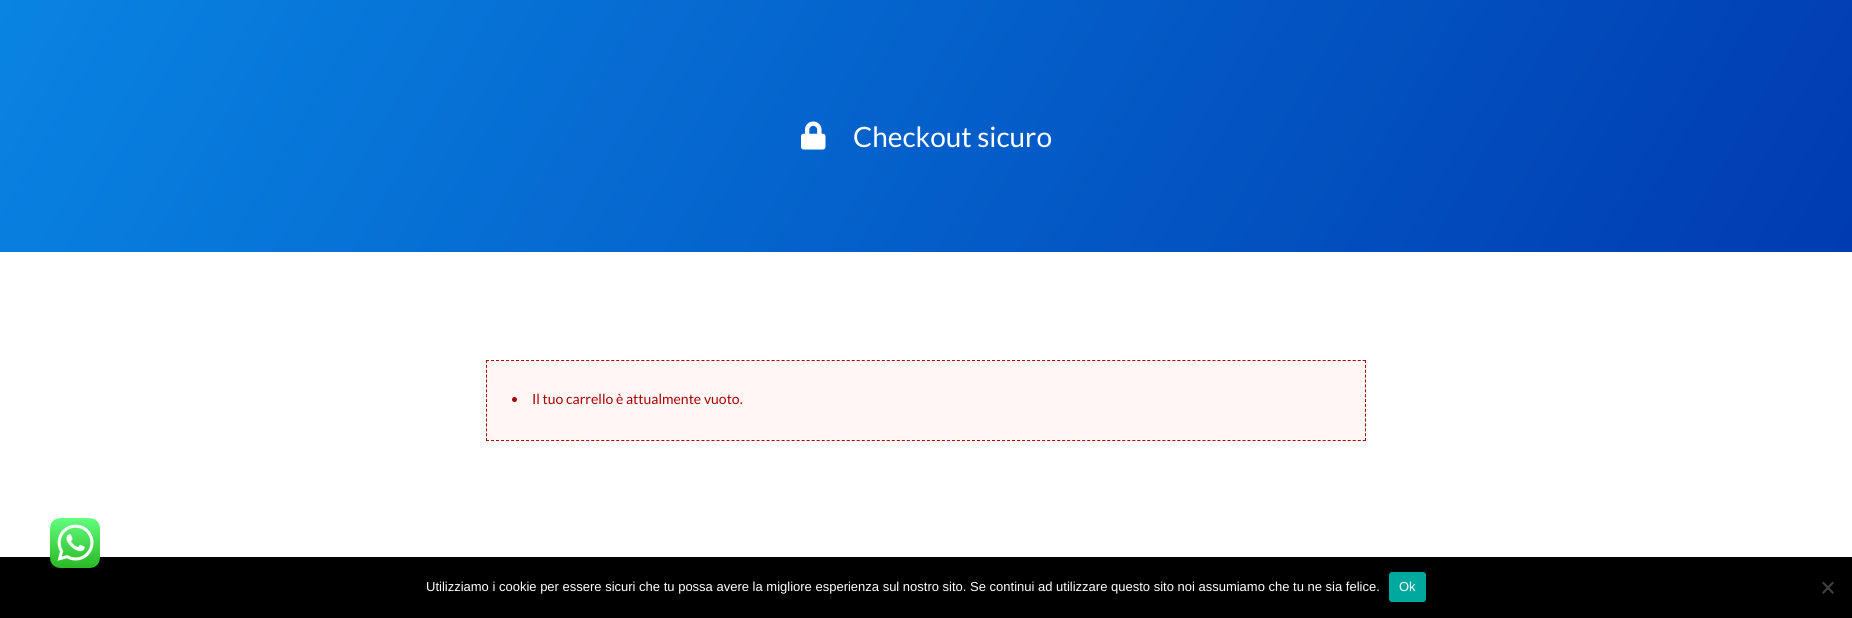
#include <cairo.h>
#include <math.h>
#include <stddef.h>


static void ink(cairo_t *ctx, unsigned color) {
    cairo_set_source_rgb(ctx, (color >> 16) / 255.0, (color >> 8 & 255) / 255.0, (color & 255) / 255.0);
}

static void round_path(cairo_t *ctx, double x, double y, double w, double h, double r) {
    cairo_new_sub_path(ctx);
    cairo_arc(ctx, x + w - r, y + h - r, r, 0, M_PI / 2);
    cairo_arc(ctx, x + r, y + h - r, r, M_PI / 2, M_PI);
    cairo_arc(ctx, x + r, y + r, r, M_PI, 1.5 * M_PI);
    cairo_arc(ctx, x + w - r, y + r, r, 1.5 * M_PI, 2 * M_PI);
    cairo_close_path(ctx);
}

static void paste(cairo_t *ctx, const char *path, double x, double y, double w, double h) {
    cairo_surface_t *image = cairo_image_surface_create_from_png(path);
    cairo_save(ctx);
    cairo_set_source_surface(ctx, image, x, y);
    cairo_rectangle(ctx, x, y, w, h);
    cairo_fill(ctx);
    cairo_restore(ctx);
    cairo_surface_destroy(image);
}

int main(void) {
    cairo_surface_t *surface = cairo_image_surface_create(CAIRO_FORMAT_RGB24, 1852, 618);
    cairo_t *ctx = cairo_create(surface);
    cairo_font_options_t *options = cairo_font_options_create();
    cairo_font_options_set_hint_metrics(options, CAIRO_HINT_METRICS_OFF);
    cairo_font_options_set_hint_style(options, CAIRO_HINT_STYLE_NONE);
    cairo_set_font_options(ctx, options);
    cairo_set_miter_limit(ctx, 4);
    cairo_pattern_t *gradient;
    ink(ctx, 0xFFFFFF);
    cairo_paint(ctx);
    gradient = cairo_pattern_create_linear(177, -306, 1675, 558);
    cairo_pattern_add_color_stop_rgba(gradient, 0, 0.035, 0.518, 0.89, 1);
    cairo_pattern_add_color_stop_rgba(gradient, 1, 0, 0.231, 0.694, 1);
    cairo_set_source(ctx, gradient);
    cairo_pattern_destroy(gradient);
    cairo_rectangle(ctx, 0, 0, 1852, 252);
    cairo_fill(ctx);
    paste(ctx, "media/1.png", 801, 121, 25, 29);
    cairo_select_font_face(ctx, "Lato", CAIRO_FONT_SLANT_NORMAL, CAIRO_FONT_WEIGHT_NORMAL);
    cairo_set_font_size(ctx, 28);
    ink(ctx, 0xFFFFFF);
    cairo_move_to(ctx, 853, 147);
    cairo_show_text(ctx, "Checkout sicuro");
    ink(ctx, 0xFFF6F6);
    cairo_rectangle(ctx, 486, 360, 880, 81);
    cairo_fill(ctx);
    cairo_new_path(ctx);
    cairo_move_to(ctx, 486, 360.5);
    cairo_line_to(ctx, 1366, 360.5);
    ink(ctx, 0xAA0000);
    cairo_set_line_width(ctx, 1);
    cairo_set_dash(ctx, (double[]){3, 2.01}, 2, 0);
    cairo_stroke(ctx);
    cairo_new_path(ctx);
    cairo_move_to(ctx, 1365.5, 360);
    cairo_line_to(ctx, 1365.5, 441);
    cairo_set_dash(ctx, (double[]){3, 1.88}, 2, 0);
    cairo_stroke(ctx);
    cairo_new_path(ctx);
    cairo_move_to(ctx, 486, 440.5);
    cairo_line_to(ctx, 1366, 440.5);
    cairo_set_dash(ctx, (double[]){3, 2.01}, 2, 0);
    cairo_stroke(ctx);
    cairo_new_path(ctx);
    cairo_move_to(ctx, 486.5, 360);
    cairo_line_to(ctx, 486.5, 441);
    cairo_set_dash(ctx, (double[]){3, 1.88}, 2, 0);
    cairo_stroke(ctx);
    cairo_arc(ctx, 514.5, 399.5, 2.5, 0, 2 * M_PI);
    cairo_fill(ctx);
    cairo_set_font_size(ctx, 14);
    cairo_move_to(ctx, 532, 404);
    cairo_show_text(ctx, "Il tuo carrello è attualmente vuoto.");
    ink(ctx, 0x000000);
    cairo_rectangle(ctx, 0, 557, 1852, 61);
    cairo_fill(ctx);
    paste(ctx, "media/2.png", 50, 518, 50, 50);
    cairo_select_font_face(ctx, "Liberation Sans", CAIRO_FONT_SLANT_NORMAL, CAIRO_FONT_WEIGHT_NORMAL);
    cairo_set_font_size(ctx, 13);
    ink(ctx, 0xFFFFFF);
    cairo_move_to(ctx, 426, 591);
    cairo_show_text(ctx, "Utilizziamo i cookie per essere sicuri che tu possa avere la migliore esperienza sul nostro sito. Se continui ad utilizzare questo sito noi assumiamo che tu ne sia felice.");
    ink(ctx, 0x00A99D);
    round_path(ctx, 1389, 572, 37, 30, 3);
    cairo_fill(ctx);
    ink(ctx, 0xFFFFFF);
    cairo_move_to(ctx, 1399, 591);
    cairo_show_text(ctx, "Ok");
    ink(ctx, 0x404040);
    cairo_new_path(ctx);
    cairo_move_to(ctx, 1832.5, 581.5);
    cairo_line_to(ctx, 1834, 583);
    cairo_line_to(ctx, 1823.5, 594);
    cairo_line_to(ctx, 1822, 592.5);
    cairo_close_path(ctx);
    cairo_fill(ctx);
    cairo_new_path(ctx);
    cairo_move_to(ctx, 1822, 583);
    cairo_line_to(ctx, 1823.5, 581.5);
    cairo_line_to(ctx, 1834, 592.5);
    cairo_line_to(ctx, 1832.5, 594);
    cairo_close_path(ctx);
    cairo_fill(ctx);
    cairo_surface_write_to_png(surface, "image.png");
    cairo_font_options_destroy(options);
    cairo_destroy(ctx);
    cairo_surface_destroy(surface);
    return 0;
}
